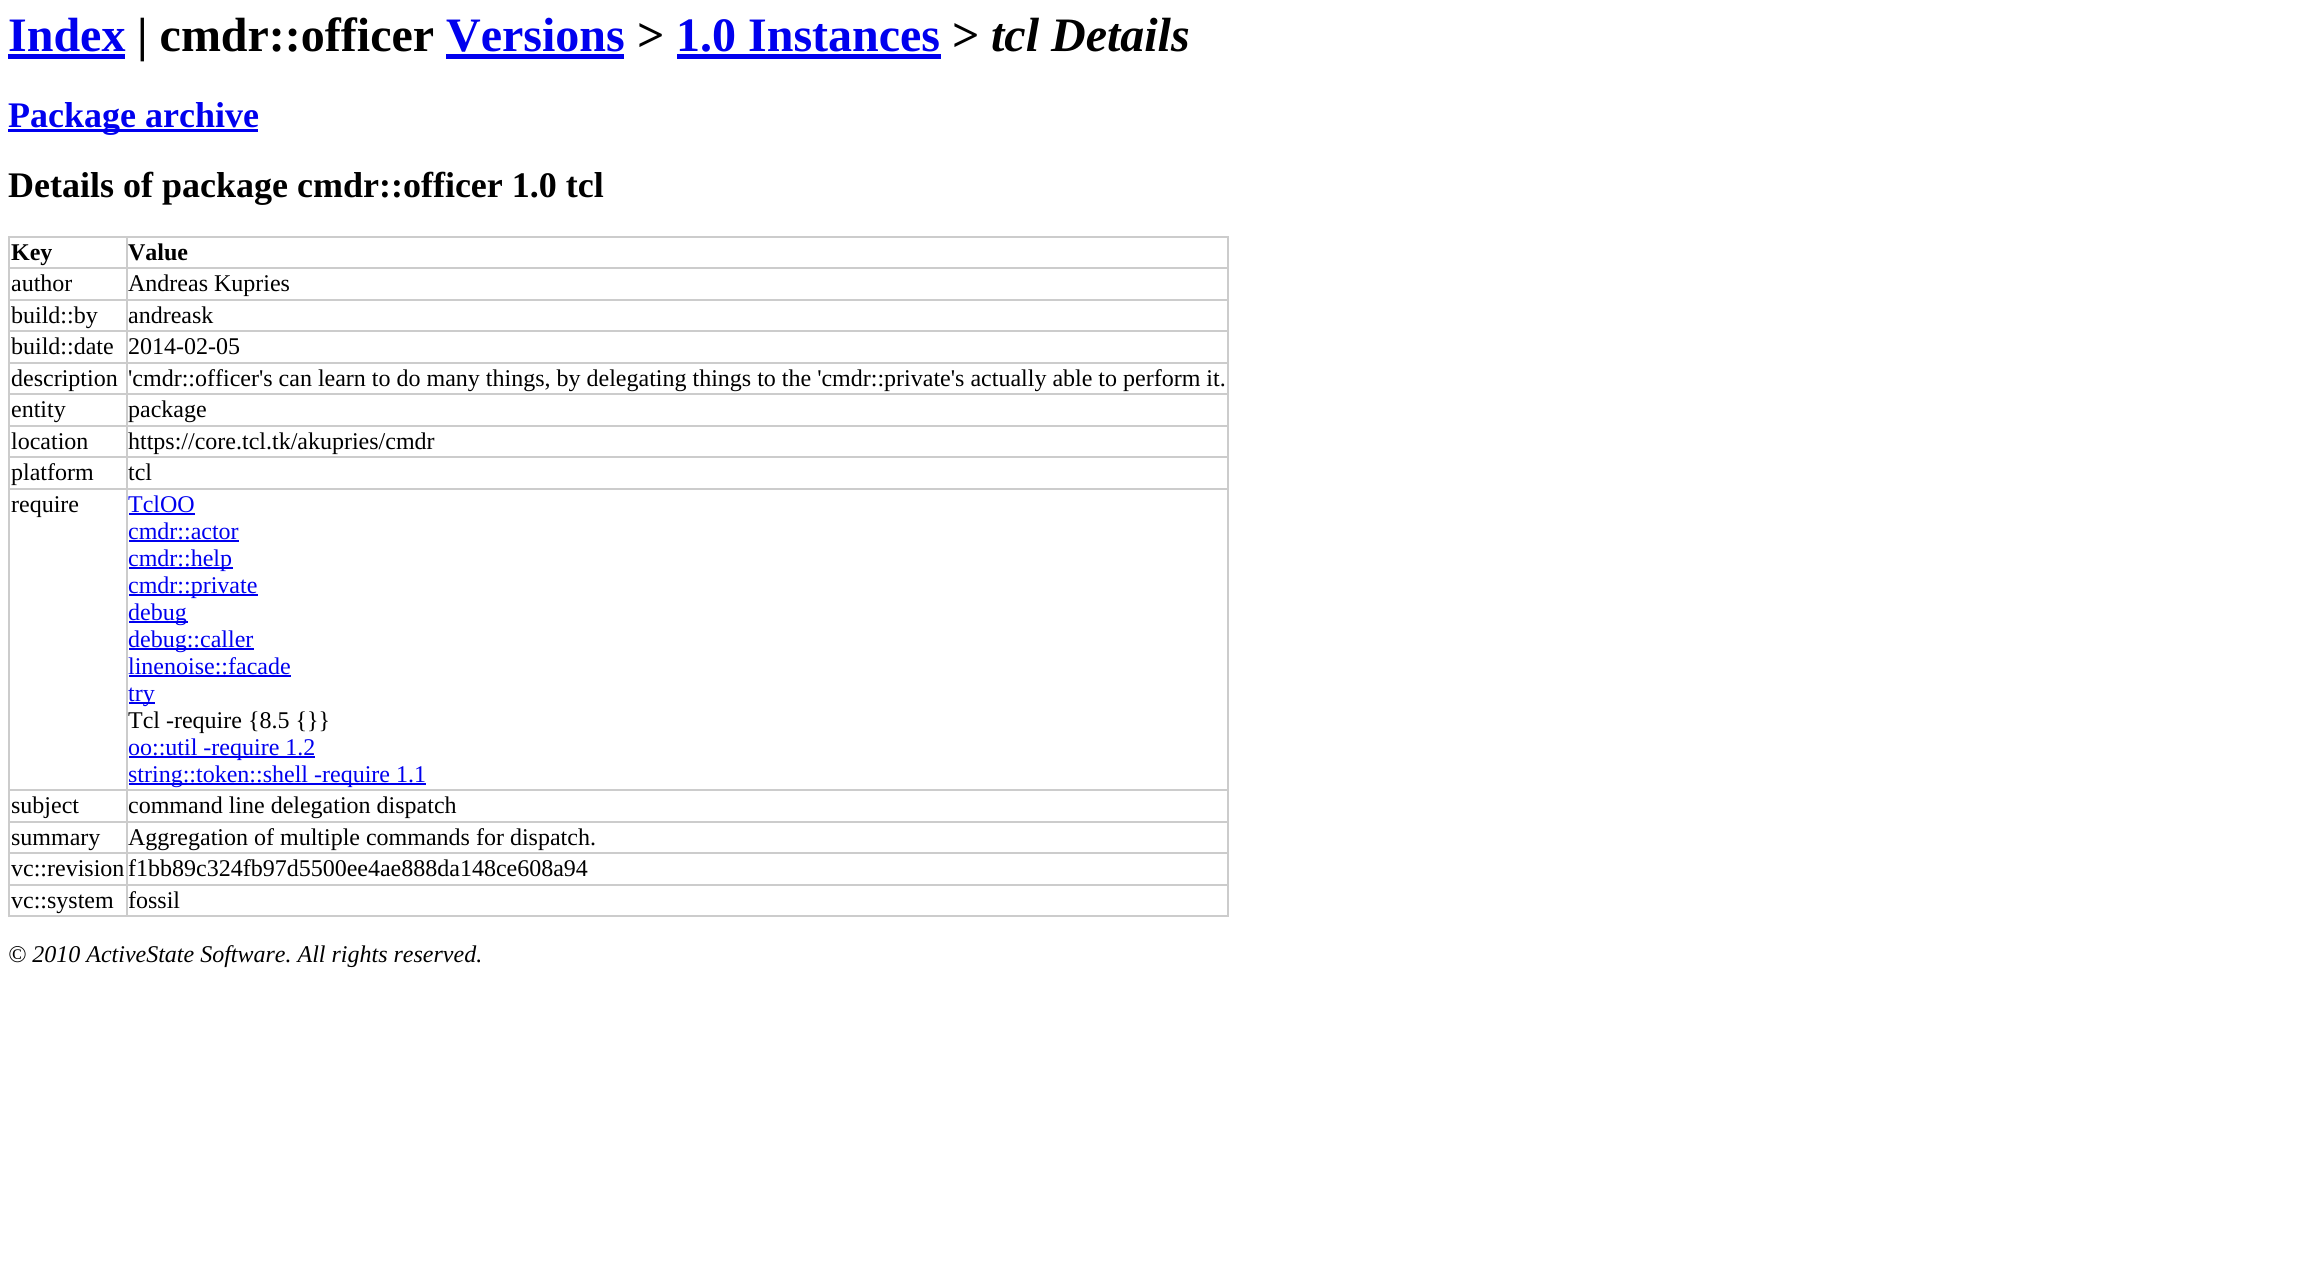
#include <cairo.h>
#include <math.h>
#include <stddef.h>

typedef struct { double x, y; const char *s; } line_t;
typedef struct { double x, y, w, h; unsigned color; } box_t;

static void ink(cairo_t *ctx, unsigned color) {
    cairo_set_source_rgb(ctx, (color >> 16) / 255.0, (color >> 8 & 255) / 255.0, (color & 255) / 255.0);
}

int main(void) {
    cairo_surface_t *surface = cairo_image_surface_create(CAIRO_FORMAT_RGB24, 2321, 1264);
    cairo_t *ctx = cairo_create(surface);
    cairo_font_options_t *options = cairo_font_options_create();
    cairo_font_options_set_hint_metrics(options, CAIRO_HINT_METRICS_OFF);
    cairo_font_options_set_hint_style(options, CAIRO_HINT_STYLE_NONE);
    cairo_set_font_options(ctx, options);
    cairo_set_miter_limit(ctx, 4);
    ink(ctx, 0xFFFFFF);
    cairo_paint(ctx);
    cairo_select_font_face(ctx, "Liberation Serif", CAIRO_FONT_SLANT_NORMAL, CAIRO_FONT_WEIGHT_BOLD);
    cairo_set_font_size(ctx, 48);
    ink(ctx, 0x0000EE);
    cairo_move_to(ctx, 8, 51);
    cairo_show_text(ctx, "Index");
    cairo_rectangle(ctx, 8, 54, 117, 5);
    cairo_fill(ctx);
    ink(ctx, 0x000000);
    cairo_move_to(ctx, 137, 51);
    cairo_show_text(ctx, "| cmdr::officer");
    ink(ctx, 0x0000EE);
    cairo_move_to(ctx, 446, 51);
    cairo_show_text(ctx, "Versions");
    cairo_rectangle(ctx, 446, 54, 178, 5);
    cairo_fill(ctx);
    ink(ctx, 0x000000);
    cairo_move_to(ctx, 637, 51);
    cairo_show_text(ctx, ">");
    ink(ctx, 0x0000EE);
    cairo_move_to(ctx, 676, 51);
    cairo_show_text(ctx, "1.0 Instances");
    cairo_rectangle(ctx, 677, 54, 264, 5);
    cairo_fill(ctx);
    ink(ctx, 0x000000);
    cairo_move_to(ctx, 952, 51);
    cairo_show_text(ctx, ">");
    cairo_select_font_face(ctx, "Liberation Serif", CAIRO_FONT_SLANT_ITALIC, CAIRO_FONT_WEIGHT_BOLD);
    cairo_move_to(ctx, 991, 51);
    cairo_show_text(ctx, "tcl Details");
    ink(ctx, 0x0000EE);
    cairo_rectangle(ctx, 8, 129, 250, 3);
    cairo_fill(ctx);
    cairo_select_font_face(ctx, "Liberation Serif", CAIRO_FONT_SLANT_NORMAL, CAIRO_FONT_WEIGHT_BOLD);
    cairo_set_font_size(ctx, 36);
    cairo_move_to(ctx, 8, 127);
    cairo_show_text(ctx, "Package archive");
    ink(ctx, 0x000000);
    cairo_move_to(ctx, 8, 197);
    cairo_show_text(ctx, "Details of package cmdr::officer 1.0 tcl");
    {
        static const box_t items[] = {
            {126, 236, 1103, 2, 0xCCCCCC},
            {126, 267, 1103, 2, 0xCCCCCC},
            {126, 299, 1103, 2, 0xCCCCCC},
            {126, 330, 1103, 2, 0xCCCCCC},
            {126, 362, 1103, 2, 0xCCCCCC},
            {126, 393, 1103, 2, 0xCCCCCC},
            {126, 425, 1103, 2, 0xCCCCCC},
            {126, 456, 1103, 2, 0xCCCCCC},
            {126, 488, 1103, 2, 0xCCCCCC},
            {126, 789, 1103, 2, 0xCCCCCC},
            {126, 821, 1103, 2, 0xCCCCCC},
            {126, 852, 1103, 2, 0xCCCCCC},
            {126, 884, 1103, 2, 0xCCCCCC},
            {1227, 884, 2, 33, 0xCCCCCC},
            {126, 915, 1103, 2, 0xCCCCCC},
            {126, 884, 2, 33, 0xCCCCCC},
            {8, 884, 120, 2, 0xCCCCCC},
            {126, 852, 2, 33, 0xCCCCCC},
            {8, 852, 120, 2, 0xCCCCCC},
            {126, 821, 2, 33, 0xCCCCCC},
            {8, 821, 120, 2, 0xCCCCCC},
            {126, 789, 2, 33, 0xCCCCCC},
            {8, 789, 120, 2, 0xCCCCCC},
            {126, 488, 2, 303, 0xCCCCCC},
            {8, 488, 120, 2, 0xCCCCCC},
            {126, 456, 2, 33, 0xCCCCCC},
            {8, 456, 120, 2, 0xCCCCCC},
            {126, 425, 2, 33, 0xCCCCCC},
            {8, 425, 120, 2, 0xCCCCCC},
            {126, 393, 2, 33, 0xCCCCCC},
            {8, 393, 120, 2, 0xCCCCCC},
            {126, 362, 2, 33, 0xCCCCCC},
            {8, 362, 120, 2, 0xCCCCCC},
            {126, 330, 2, 33, 0xCCCCCC},
            {8, 330, 120, 2, 0xCCCCCC},
            {126, 299, 2, 33, 0xCCCCCC},
            {8, 299, 120, 2, 0xCCCCCC},
            {126, 267, 2, 33, 0xCCCCCC},
            {8, 267, 120, 2, 0xCCCCCC},
            {126, 236, 2, 33, 0xCCCCCC},
            {8, 236, 120, 2, 0xCCCCCC},
            {8, 915, 120, 2, 0xCCCCCC},
            {8, 884, 2, 33, 0xCCCCCC},
            {8, 852, 2, 33, 0xCCCCCC},
            {8, 821, 2, 33, 0xCCCCCC},
            {8, 789, 2, 33, 0xCCCCCC},
            {8, 488, 2, 303, 0xCCCCCC},
            {8, 456, 2, 33, 0xCCCCCC},
            {8, 425, 2, 33, 0xCCCCCC},
            {8, 393, 2, 33, 0xCCCCCC},
            {8, 362, 2, 33, 0xCCCCCC},
            {8, 330, 2, 33, 0xCCCCCC},
            {8, 299, 2, 33, 0xCCCCCC},
            {8, 267, 2, 33, 0xCCCCCC},
            {8, 236, 2, 33, 0xCCCCCC},
        };
        for (size_t i = 0; i < sizeof items / sizeof *items; i++) {
            ink(ctx, items[i].color);
            cairo_rectangle(ctx, items[i].x, items[i].y, items[i].w, items[i].h);
            cairo_fill(ctx);
        }
    }
    cairo_set_font_size(ctx, 24);
    ink(ctx, 0x000000);
    cairo_move_to(ctx, 11, 260);
    cairo_show_text(ctx, "Key");
    {
        static const box_t items[] = {
            {1227, 852, 2, 33, 0xCCCCCC},
            {1227, 821, 2, 33, 0xCCCCCC},
            {1227, 789, 2, 33, 0xCCCCCC},
            {1227, 488, 2, 303, 0xCCCCCC},
            {1227, 456, 2, 33, 0xCCCCCC},
            {1227, 425, 2, 33, 0xCCCCCC},
            {1227, 393, 2, 33, 0xCCCCCC},
            {1227, 362, 2, 33, 0xCCCCCC},
            {1227, 330, 2, 33, 0xCCCCCC},
            {1227, 299, 2, 33, 0xCCCCCC},
            {1227, 267, 2, 33, 0xCCCCCC},
            {1227, 236, 2, 33, 0xCCCCCC},
        };
        for (size_t i = 0; i < sizeof items / sizeof *items; i++) {
            ink(ctx, items[i].color);
            cairo_rectangle(ctx, items[i].x, items[i].y, items[i].w, items[i].h);
            cairo_fill(ctx);
        }
    }
    ink(ctx, 0x000000);
    cairo_move_to(ctx, 128, 260);
    cairo_show_text(ctx, "Value");
    cairo_select_font_face(ctx, "Liberation Serif", CAIRO_FONT_SLANT_NORMAL, CAIRO_FONT_WEIGHT_NORMAL);
    {
        static const line_t items[] = {
            {11, 291, "author"},
            {128, 291, "Andreas Kupries"},
            {11, 323, "build::by"},
            {128, 323, "andreask"},
            {11, 354, "build::date"},
            {128, 354, "2014-02-05"},
            {11, 386, "description"},
            {128, 386, "'cmdr::officer's can learn to do many things, by delegating things to the 'cmdr::private's actually able to perform it."},
            {11, 417, "entity"},
            {128, 417, "package"},
            {11, 449, "location"},
            {128, 449, "https://core.tcl.tk/akupries/cmdr"},
            {11, 480, "platform"},
            {128, 480, "tcl"},
            {11, 512, "require"},
        };
        for (size_t i = 0; i < sizeof items / sizeof *items; i++) {
            cairo_move_to(ctx, items[i].x, items[i].y);
            cairo_show_text(ctx, items[i].s);
        }
    }
    ink(ctx, 0x0000EE);
    cairo_move_to(ctx, 128, 512);
    cairo_show_text(ctx, "TclOO");
    cairo_rectangle(ctx, 129, 513, 66, 2);
    cairo_fill(ctx);
    cairo_move_to(ctx, 128, 539);
    cairo_show_text(ctx, "cmdr::actor");
    cairo_rectangle(ctx, 129, 540, 110, 2);
    cairo_fill(ctx);
    cairo_rectangle(ctx, 129, 567, 104, 2);
    cairo_fill(ctx);
    cairo_move_to(ctx, 128, 566);
    cairo_show_text(ctx, "cmdr::help");
    cairo_rectangle(ctx, 129, 594, 129, 2);
    cairo_fill(ctx);
    cairo_move_to(ctx, 128, 593);
    cairo_show_text(ctx, "cmdr::private");
    cairo_rectangle(ctx, 129, 621, 59, 2);
    cairo_fill(ctx);
    cairo_move_to(ctx, 128, 620);
    cairo_show_text(ctx, "debug");
    cairo_rectangle(ctx, 129, 648, 125, 2);
    cairo_fill(ctx);
    cairo_move_to(ctx, 128, 647);
    cairo_show_text(ctx, "debug::caller");
    cairo_move_to(ctx, 128, 674);
    cairo_show_text(ctx, "linenoise::facade");
    cairo_rectangle(ctx, 129, 675, 162, 2);
    cairo_fill(ctx);
    cairo_rectangle(ctx, 129, 702, 26, 2);
    cairo_fill(ctx);
    cairo_move_to(ctx, 128, 701);
    cairo_show_text(ctx, "try");
    ink(ctx, 0x000000);
    cairo_move_to(ctx, 128, 728);
    cairo_show_text(ctx, "Tcl -require {8.5 {}}");
    ink(ctx, 0x0000EE);
    cairo_rectangle(ctx, 129, 756, 186, 2);
    cairo_fill(ctx);
    cairo_move_to(ctx, 128, 755);
    cairo_show_text(ctx, "oo::util -require 1.2");
    cairo_rectangle(ctx, 129, 783, 297, 2);
    cairo_fill(ctx);
    cairo_move_to(ctx, 128, 782);
    cairo_show_text(ctx, "string::token::shell -require 1.1");
    ink(ctx, 0x000000);
    {
        static const line_t items[] = {
            {11, 813, "subject"},
            {128, 813, "command line delegation dispatch"},
            {11, 845, "summary"},
            {128, 845, "Aggregation of multiple commands for dispatch."},
            {11, 876, "vc::revision"},
            {128, 876, "f1bb89c324fb97d5500ee4ae888da148ce608a94"},
            {11, 908, "vc::system"},
            {128, 908, "fossil"},
        };
        for (size_t i = 0; i < sizeof items / sizeof *items; i++) {
            cairo_move_to(ctx, items[i].x, items[i].y);
            cairo_show_text(ctx, items[i].s);
        }
    }
    cairo_select_font_face(ctx, "Liberation Serif", CAIRO_FONT_SLANT_ITALIC, CAIRO_FONT_WEIGHT_NORMAL);
    cairo_move_to(ctx, 8, 962);
    cairo_show_text(ctx, "© 2010 ActiveState Software. All rights reserved.");
    cairo_surface_write_to_png(surface, "image.png");
    cairo_font_options_destroy(options);
    cairo_destroy(ctx);
    cairo_surface_destroy(surface);
    return 0;
}
